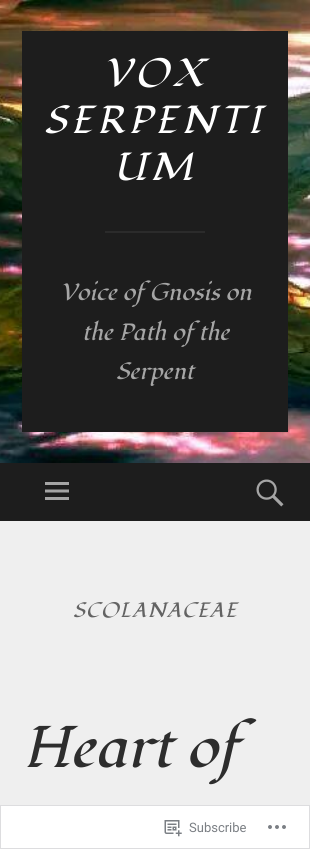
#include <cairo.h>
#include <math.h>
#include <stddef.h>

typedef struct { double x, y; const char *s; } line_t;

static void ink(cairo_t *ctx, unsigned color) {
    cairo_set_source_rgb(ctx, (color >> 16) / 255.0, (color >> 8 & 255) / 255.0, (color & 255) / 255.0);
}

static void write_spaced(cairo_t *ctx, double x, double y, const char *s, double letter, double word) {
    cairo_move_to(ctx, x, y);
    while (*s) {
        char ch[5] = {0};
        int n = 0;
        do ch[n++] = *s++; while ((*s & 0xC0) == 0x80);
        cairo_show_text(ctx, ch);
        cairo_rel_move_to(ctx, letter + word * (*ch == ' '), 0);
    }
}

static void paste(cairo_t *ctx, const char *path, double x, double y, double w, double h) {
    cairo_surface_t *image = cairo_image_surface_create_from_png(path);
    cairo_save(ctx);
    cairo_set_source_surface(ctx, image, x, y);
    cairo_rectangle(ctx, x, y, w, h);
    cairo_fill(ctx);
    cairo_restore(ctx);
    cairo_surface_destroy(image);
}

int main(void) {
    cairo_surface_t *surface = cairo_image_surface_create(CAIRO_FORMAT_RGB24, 310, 849);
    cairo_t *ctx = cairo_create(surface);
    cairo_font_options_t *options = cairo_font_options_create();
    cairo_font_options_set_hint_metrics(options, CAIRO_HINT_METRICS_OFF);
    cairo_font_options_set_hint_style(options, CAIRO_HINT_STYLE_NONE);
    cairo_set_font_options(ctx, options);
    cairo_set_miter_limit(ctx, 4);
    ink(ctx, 0xEFEFEF);
    cairo_paint(ctx);
    paste(ctx, "media/1.png", 0, 0, 310, 463);
    ink(ctx, 0x1D1D1D);
    cairo_rectangle(ctx, 22, 31, 266, 401);
    cairo_fill(ctx);
    cairo_select_font_face(ctx, "Fondamento", CAIRO_FONT_SLANT_ITALIC, CAIRO_FONT_WEIGHT_NORMAL);
    cairo_set_font_size(ctx, 39);
    ink(ctx, 0xFFFFFF);
    {
        static const line_t items[] = {
            {103, 86, "VOX"},
            {44, 133, "SERPENTI"},
            {113, 180, "UM"},
        };
        for (size_t i = 0; i < sizeof items / sizeof *items; i++) {
            write_spaced(ctx, items[i].x, items[i].y, items[i].s, 4, 0);
        }
    }
    ink(ctx, 0x2B2B2B);
    cairo_rectangle(ctx, 105, 231, 100, 2);
    cairo_fill(ctx);
    cairo_set_font_size(ctx, 23.5);
    ink(ctx, 0xA5A5A5);
    {
        static const line_t items[] = {
            {60, 300, "Voice of Gnosis on"},
            {82, 340, "the Path of the"},
            {116, 379, "Serpent"},
        };
        for (size_t i = 0; i < sizeof items / sizeof *items; i++) {
            cairo_move_to(ctx, items[i].x, items[i].y);
            cairo_show_text(ctx, items[i].s);
        }
    }
    ink(ctx, 0x1D1D1D);
    cairo_rectangle(ctx, 0, 463, 310, 58);
    cairo_fill(ctx);
    paste(ctx, "media/2.png", 45, 482, 24, 18);
    paste(ctx, "media/3.png", 256, 479, 28, 28);
    cairo_set_font_size(ctx, 20.75);
    ink(ctx, 0x636363);
    write_spaced(ctx, 73, 617, "SCOLANACEAE", 1, 0);
    cairo_set_font_size(ctx, 58.5);
    ink(ctx, 0x2D2D2D);
    cairo_move_to(ctx, 22, 767);
    cairo_show_text(ctx, "Heart of");
    cairo_set_source_rgba(ctx, 1, 1, 1, 0.98);
    cairo_rectangle(ctx, 0, 805, 310, 44);
    cairo_fill(ctx);
    cairo_rectangle(ctx, 0.5, 805.5, 309, 43);
    cairo_set_source_rgba(ctx, 0.863, 0.863, 0.871, 0.98);
    cairo_set_line_width(ctx, 1);
    cairo_stroke(ctx);
    paste(ctx, "media/4.png", 164, 820, 18, 17);
    cairo_select_font_face(ctx, "Roboto", CAIRO_FONT_SLANT_NORMAL, CAIRO_FONT_WEIGHT_NORMAL);
    cairo_set_font_size(ctx, 13);
    ink(ctx, 0x7B7F84);
    cairo_move_to(ctx, 189, 832);
    cairo_show_text(ctx, "Subscribe");
    paste(ctx, "media/5.png", 268, 825, 18, 4);
    cairo_surface_write_to_png(surface, "image.png");
    cairo_font_options_destroy(options);
    cairo_destroy(ctx);
    cairo_surface_destroy(surface);
    return 0;
}
